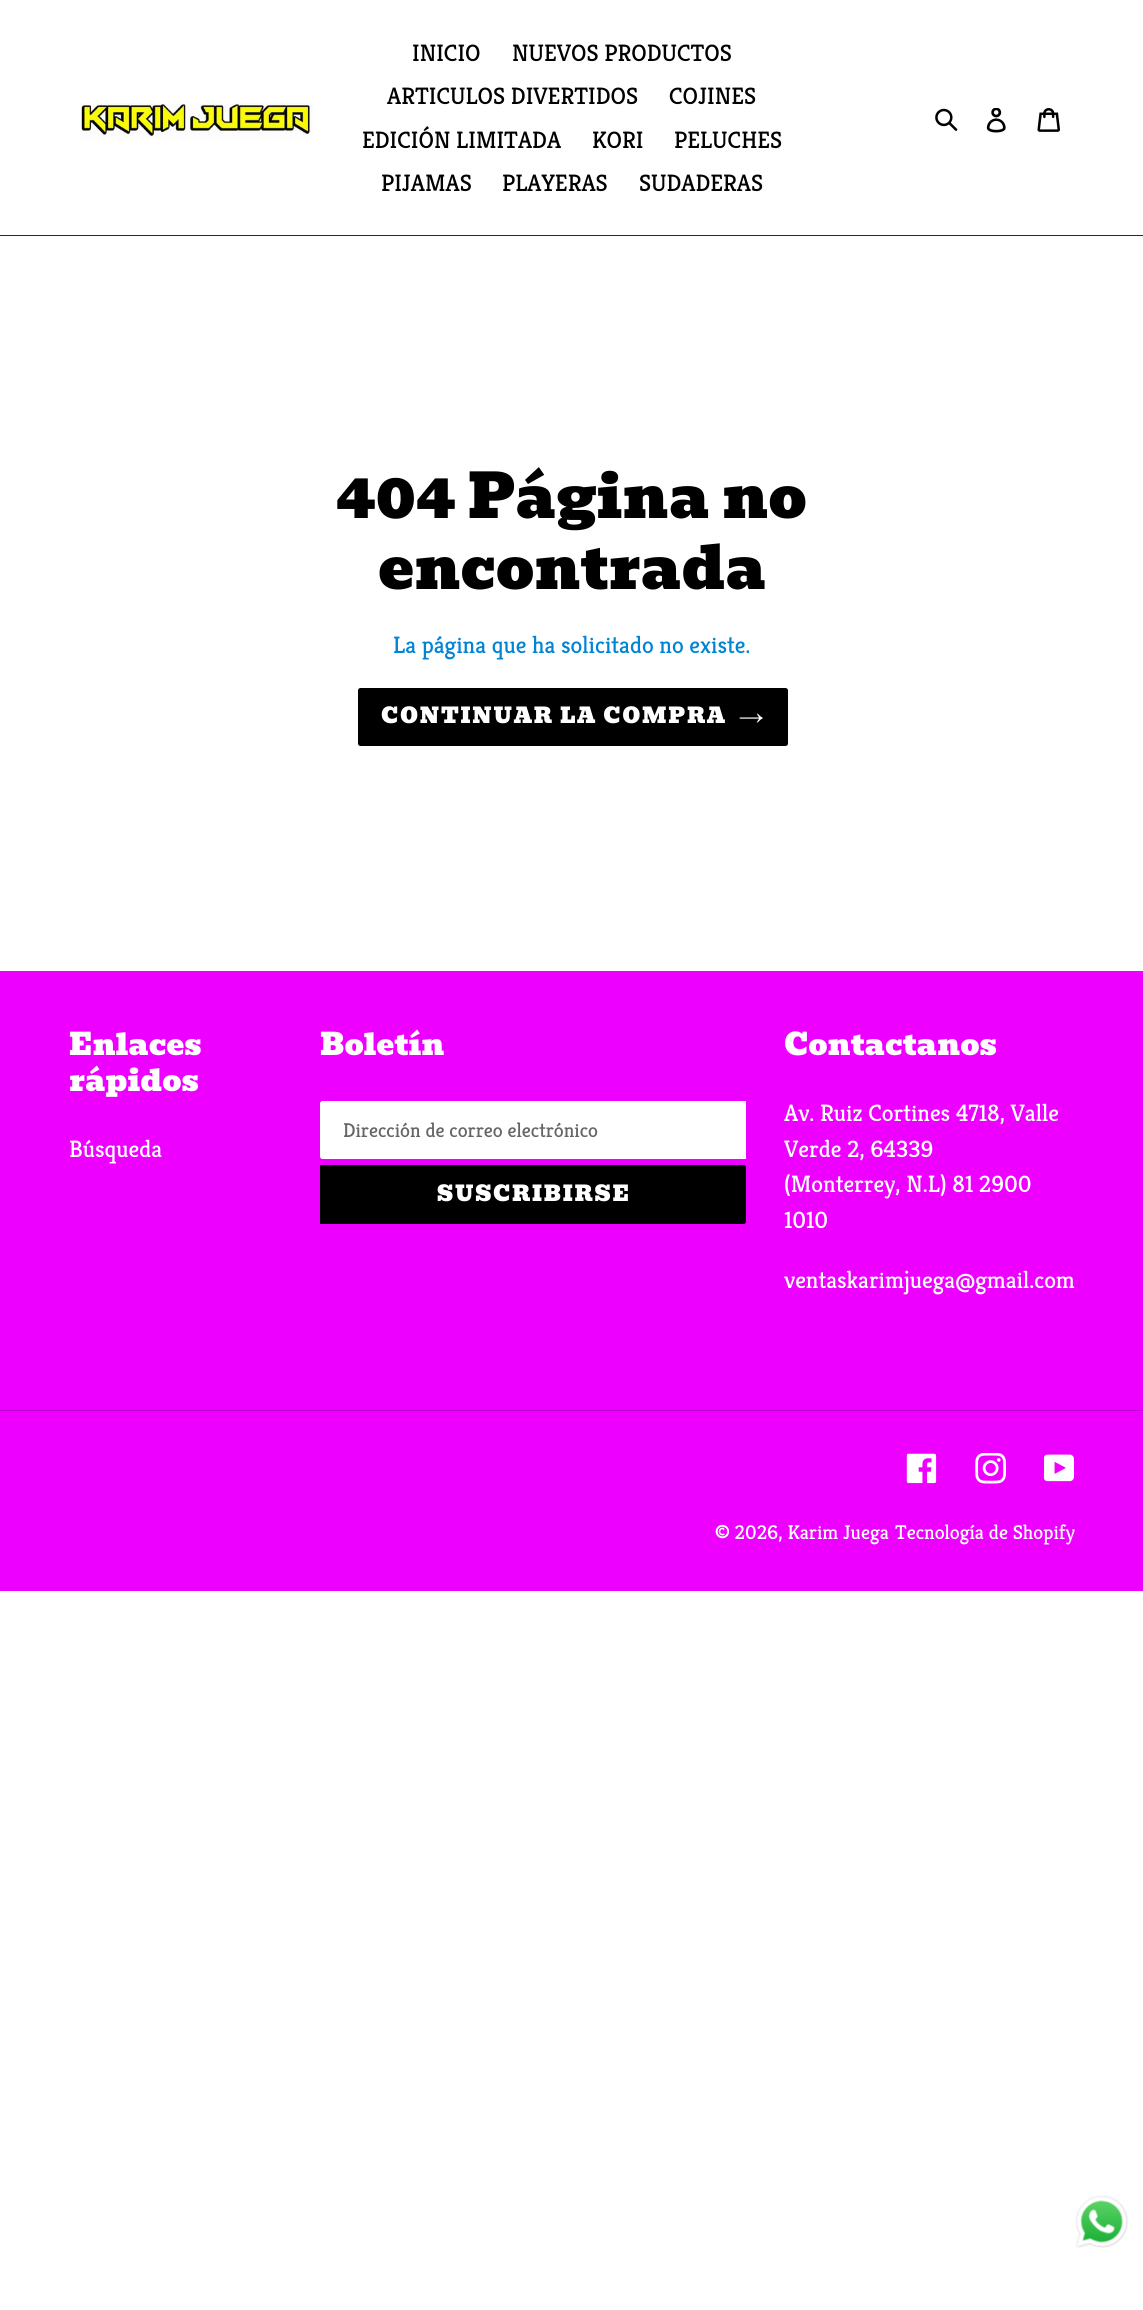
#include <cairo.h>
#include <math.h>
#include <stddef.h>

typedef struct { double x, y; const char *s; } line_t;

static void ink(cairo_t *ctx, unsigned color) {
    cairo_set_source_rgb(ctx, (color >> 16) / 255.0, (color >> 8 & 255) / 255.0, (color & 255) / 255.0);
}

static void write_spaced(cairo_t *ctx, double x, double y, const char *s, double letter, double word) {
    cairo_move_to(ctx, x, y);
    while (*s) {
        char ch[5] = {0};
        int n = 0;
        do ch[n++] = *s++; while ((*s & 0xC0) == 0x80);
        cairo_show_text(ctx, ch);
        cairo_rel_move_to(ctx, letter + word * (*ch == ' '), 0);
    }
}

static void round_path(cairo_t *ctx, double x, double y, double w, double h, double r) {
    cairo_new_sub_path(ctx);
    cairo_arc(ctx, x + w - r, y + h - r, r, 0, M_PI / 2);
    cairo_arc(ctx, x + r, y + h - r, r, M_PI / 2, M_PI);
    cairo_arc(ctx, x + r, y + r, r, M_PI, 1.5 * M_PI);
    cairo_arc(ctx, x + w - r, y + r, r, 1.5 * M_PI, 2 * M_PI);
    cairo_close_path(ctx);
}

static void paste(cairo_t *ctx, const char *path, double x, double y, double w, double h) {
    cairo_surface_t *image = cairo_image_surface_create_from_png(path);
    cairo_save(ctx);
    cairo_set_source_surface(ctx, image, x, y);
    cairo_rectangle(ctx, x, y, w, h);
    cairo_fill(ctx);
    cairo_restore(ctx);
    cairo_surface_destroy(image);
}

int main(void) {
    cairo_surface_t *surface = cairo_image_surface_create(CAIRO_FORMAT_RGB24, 1143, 2310);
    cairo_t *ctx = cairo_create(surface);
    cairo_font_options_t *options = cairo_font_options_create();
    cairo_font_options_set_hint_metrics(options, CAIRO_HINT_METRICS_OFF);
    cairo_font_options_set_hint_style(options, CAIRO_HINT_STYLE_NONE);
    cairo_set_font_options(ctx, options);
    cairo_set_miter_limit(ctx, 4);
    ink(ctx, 0xFFFFFF);
    cairo_paint(ctx);
    ink(ctx, 0x4400BC);
    cairo_rectangle(ctx, 0, 235, 1143, 1);
    cairo_fill(ctx);
    paste(ctx, "media/1.png", 80, 103, 233, 36);
    cairo_select_font_face(ctx, "Kreon", CAIRO_FONT_SLANT_NORMAL, CAIRO_FONT_WEIGHT_NORMAL);
    cairo_set_font_size(ctx, 23.75);
    ink(ctx, 0x000000);
    {
        static const line_t items[] = {
            {412, 61, "INICIO"},
            {512, 61, "NUEVOS PRODUCTOS"},
            {387, 104, "ARTICULOS DIVERTIDOS"},
            {669, 104, "COJINES"},
            {362, 148, "EDICIÓN LIMITADA"},
            {592, 148, "KORI"},
            {674, 148, "PELUCHES"},
            {381, 191, "PIJAMAS"},
            {502, 191, "PLAYERAS"},
            {639, 191, "SUDADERAS"},
        };
        for (size_t i = 0; i < sizeof items / sizeof *items; i++) {
            cairo_move_to(ctx, items[i].x, items[i].y);
            cairo_show_text(ctx, items[i].s);
        }
    }
    paste(ctx, "media/2.png", 935, 108, 23, 23);
    paste(ctx, "media/3.png", 986, 108, 20, 25);
    paste(ctx, "media/4.png", 1037, 108, 23, 24);
    cairo_select_font_face(ctx, "Bevan", CAIRO_FONT_SLANT_NORMAL, CAIRO_FONT_WEIGHT_NORMAL);
    cairo_set_font_size(ctx, 60);
    cairo_move_to(ctx, 336, 518);
    cairo_show_text(ctx, "404 Página no");
    cairo_move_to(ctx, 378, 589);
    cairo_show_text(ctx, "encontrada");
    cairo_select_font_face(ctx, "Kreon", CAIRO_FONT_SLANT_NORMAL, CAIRO_FONT_WEIGHT_NORMAL);
    cairo_set_font_size(ctx, 23.75);
    ink(ctx, 0x0084D5);
    cairo_move_to(ctx, 393, 653);
    cairo_show_text(ctx, "La página que ha solicitado no existe.");
    ink(ctx, 0x000000);
    round_path(ctx, 358, 688, 430, 58, 2.5);
    cairo_fill(ctx);
    cairo_select_font_face(ctx, "Bevan", CAIRO_FONT_SLANT_NORMAL, CAIRO_FONT_WEIGHT_NORMAL);
    cairo_set_font_size(ctx, 21.25);
    ink(ctx, 0xFFFFFF);
    write_spaced(ctx, 381, 723, "CONTINUAR LA COMPRA", 1.75, 0);
    paste(ctx, "media/5.png", 739, 713, 24, 10);
    ink(ctx, 0xED00FF);
    cairo_rectangle(ctx, 0, 971, 1143, 620);
    cairo_fill(ctx);
    cairo_set_font_size(ctx, 30);
    ink(ctx, 0xFFFFFF);
    cairo_move_to(ctx, 69, 1055);
    cairo_show_text(ctx, "Enlaces");
    cairo_move_to(ctx, 69, 1091);
    cairo_show_text(ctx, "rápidos");
    cairo_select_font_face(ctx, "Kreon", CAIRO_FONT_SLANT_NORMAL, CAIRO_FONT_WEIGHT_NORMAL);
    cairo_set_font_size(ctx, 23.75);
    cairo_move_to(ctx, 69, 1157);
    cairo_show_text(ctx, "Búsqueda");
    cairo_select_font_face(ctx, "Bevan", CAIRO_FONT_SLANT_NORMAL, CAIRO_FONT_WEIGHT_NORMAL);
    cairo_set_font_size(ctx, 30);
    cairo_move_to(ctx, 320, 1055);
    cairo_show_text(ctx, "Boletín");
    cairo_new_path(ctx);
    cairo_move_to(ctx, 322.5, 1101.5);
    cairo_line_to(ctx, 745.5, 1101.5);
    cairo_line_to(ctx, 745.5, 1158.5);
    cairo_line_to(ctx, 322.5, 1158.5);
    cairo_curve_to(ctx, 321.5, 1158.5, 320.5, 1157.5, 320.5, 1156.5);
    cairo_line_to(ctx, 320.5, 1103.5);
    cairo_curve_to(ctx, 320.5, 1102.5, 321.5, 1101.5, 322.5, 1101.5);
    cairo_close_path(ctx);
    cairo_fill_preserve(ctx);
    cairo_set_line_width(ctx, 1);
    cairo_stroke(ctx);
    cairo_select_font_face(ctx, "Kreon", CAIRO_FONT_SLANT_NORMAL, CAIRO_FONT_WEIGHT_NORMAL);
    cairo_set_font_size(ctx, 20);
    ink(ctx, 0x666666);
    cairo_move_to(ctx, 343, 1137);
    cairo_show_text(ctx, "Dirección de correo electrónico");
    ink(ctx, 0x000000);
    cairo_new_path(ctx);
    cairo_move_to(ctx, 320, 1165);
    cairo_line_to(ctx, 743.5, 1165);
    cairo_curve_to(ctx, 745, 1165, 746, 1166, 746, 1167.5);
    cairo_line_to(ctx, 746, 1221.5);
    cairo_curve_to(ctx, 746, 1223, 745, 1224, 743.5, 1224);
    cairo_line_to(ctx, 320, 1224);
    cairo_close_path(ctx);
    cairo_fill(ctx);
    cairo_select_font_face(ctx, "Bevan", CAIRO_FONT_SLANT_NORMAL, CAIRO_FONT_WEIGHT_NORMAL);
    cairo_set_font_size(ctx, 21.25);
    ink(ctx, 0xFFFFFF);
    write_spaced(ctx, 437, 1201, "SUSCRIBIRSE", 1.75, 0);
    cairo_set_font_size(ctx, 30);
    cairo_move_to(ctx, 784, 1055);
    cairo_show_text(ctx, "Contactanos");
    cairo_select_font_face(ctx, "Kreon", CAIRO_FONT_SLANT_NORMAL, CAIRO_FONT_WEIGHT_NORMAL);
    cairo_set_font_size(ctx, 23.75);
    {
        static const line_t items[] = {
            {784, 1121, "Av. Ruiz Cortines 4718, Valle"},
            {784, 1157, "Verde 2, 64339"},
            {784, 1192, "(Monterrey, N.L) 81 2900"},
            {784, 1228, "1010"},
            {784, 1288, "ventaskarimjuega@gmail.com"},
        };
        for (size_t i = 0; i < sizeof items / sizeof *items; i++) {
            cairo_move_to(ctx, items[i].x, items[i].y);
            cairo_show_text(ctx, items[i].s);
        }
    }
    ink(ctx, 0xBE00CC);
    cairo_rectangle(ctx, 0, 1410, 1143, 1);
    cairo_fill(ctx);
    paste(ctx, "media/6.png", 906, 1453, 31, 31);
    paste(ctx, "media/7.png", 975, 1453, 31, 31);
    paste(ctx, "media/8.png", 1044, 1454, 30, 28);
    cairo_set_font_size(ctx, 20);
    ink(ctx, 0xFFFFFF);
    cairo_move_to(ctx, 715, 1539);
    cairo_show_text(ctx, "© 2026, Karim Juega");
    cairo_move_to(ctx, 895, 1539);
    cairo_show_text(ctx, "Tecnología de Shopify");
    paste(ctx, "media/9.png", 1075, 2195, 54, 53);
    cairo_surface_write_to_png(surface, "image.png");
    cairo_font_options_destroy(options);
    cairo_destroy(ctx);
    cairo_surface_destroy(surface);
    return 0;
}
